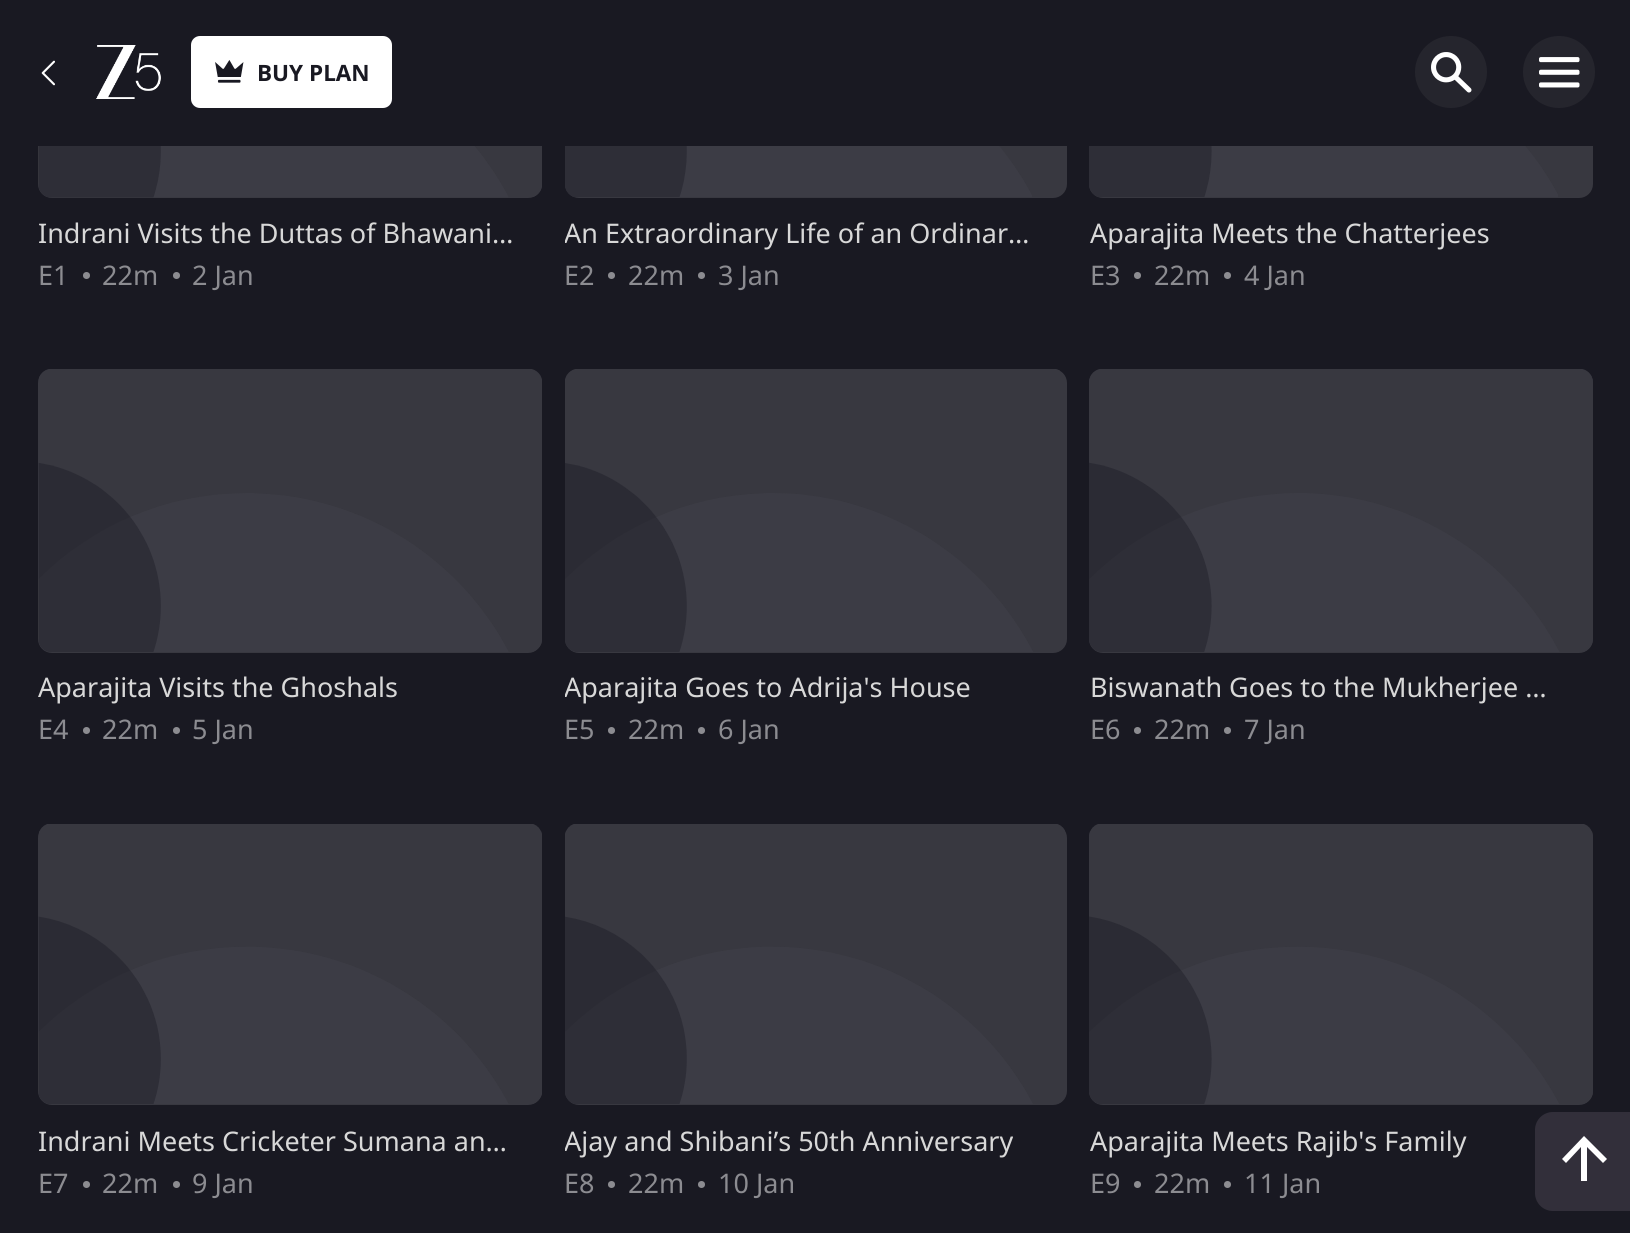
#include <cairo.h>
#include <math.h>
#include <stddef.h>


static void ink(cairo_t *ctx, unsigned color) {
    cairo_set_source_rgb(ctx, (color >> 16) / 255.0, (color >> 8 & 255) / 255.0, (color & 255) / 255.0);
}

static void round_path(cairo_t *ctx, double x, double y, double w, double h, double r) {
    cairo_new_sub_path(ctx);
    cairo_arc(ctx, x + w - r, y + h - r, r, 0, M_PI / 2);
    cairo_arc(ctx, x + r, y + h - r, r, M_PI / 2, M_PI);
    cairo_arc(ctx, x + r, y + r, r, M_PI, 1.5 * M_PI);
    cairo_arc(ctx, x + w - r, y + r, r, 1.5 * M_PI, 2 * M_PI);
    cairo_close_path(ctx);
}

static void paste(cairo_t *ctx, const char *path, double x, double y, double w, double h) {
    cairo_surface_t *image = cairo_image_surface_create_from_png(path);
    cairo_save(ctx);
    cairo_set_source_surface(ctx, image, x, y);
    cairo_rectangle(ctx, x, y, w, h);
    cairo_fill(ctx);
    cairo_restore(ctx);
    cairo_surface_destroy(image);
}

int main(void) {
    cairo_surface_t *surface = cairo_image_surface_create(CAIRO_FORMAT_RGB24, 1630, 1233);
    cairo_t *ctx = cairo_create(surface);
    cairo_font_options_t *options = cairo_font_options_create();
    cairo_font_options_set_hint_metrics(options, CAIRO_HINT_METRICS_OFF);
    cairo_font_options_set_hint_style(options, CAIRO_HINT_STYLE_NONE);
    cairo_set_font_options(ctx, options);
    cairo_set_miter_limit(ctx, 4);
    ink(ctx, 0x191922);
    cairo_paint(ctx);
    ink(ctx, 0x383840);
    round_path(ctx, 38, -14, 504, 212, 14);
    cairo_fill(ctx);
    round_path(ctx, 565, -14, 502, 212, 14);
    cairo_fill(ctx);
    round_path(ctx, 1089, -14, 504, 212, 14);
    cairo_fill(ctx);
    ink(ctx, 0x191922);
    cairo_rectangle(ctx, 38, 0, 1555, 146);
    cairo_fill(ctx);
    paste(ctx, "media/1.png", 41, 60, 14, 26);
    paste(ctx, "media/2.png", 96, 45, 65, 54);
    ink(ctx, 0xFFFFFF);
    round_path(ctx, 191, 36, 201, 72, 9);
    cairo_fill(ctx);
    paste(ctx, "media/3.png", 215, 60, 29, 23);
    cairo_select_font_face(ctx, "Noto Sans", CAIRO_FONT_SLANT_NORMAL, CAIRO_FONT_WEIGHT_BOLD);
    cairo_set_font_size(ctx, 22.5);
    ink(ctx, 0x191922);
    cairo_move_to(ctx, 257, 81);
    cairo_show_text(ctx, "BUY PLAN");
    ink(ctx, 0x25252D);
    cairo_new_path(ctx);
    cairo_arc(ctx, 1451, 72, 36, 0, 2 * M_PI);
    cairo_fill(ctx);
    paste(ctx, "media/4.png", 1431, 52, 41, 41);
    cairo_arc(ctx, 1559, 72, 36, 0, 2 * M_PI);
    cairo_fill(ctx);
    paste(ctx, "media/5.png", 1539, 57, 41, 31);
    paste(ctx, "media/6.png", 38, 146, 504, 52);
    cairo_select_font_face(ctx, "Noto Sans", CAIRO_FONT_SLANT_NORMAL, CAIRO_FONT_WEIGHT_NORMAL);
    cairo_set_font_size(ctx, 27);
    ink(ctx, 0xD8D8D8);
    cairo_move_to(ctx, 38, 243);
    cairo_show_text(ctx, "Indrani Visits the Duttas of Bhawani…");
    ink(ctx, 0x8C8C91);
    cairo_move_to(ctx, 38, 285);
    cairo_show_text(ctx, "E1");
    cairo_new_path(ctx);
    cairo_arc(ctx, 86.5, 275.5, 3.5, 0, 2 * M_PI);
    cairo_fill(ctx);
    cairo_move_to(ctx, 102, 285);
    cairo_show_text(ctx, "22m");
    cairo_new_path(ctx);
    cairo_arc(ctx, 176.5, 275.5, 3.5, 0, 2 * M_PI);
    cairo_fill(ctx);
    cairo_move_to(ctx, 192, 285);
    cairo_show_text(ctx, "2 Jan");
    paste(ctx, "media/7.png", 565, 146, 467, 51);
    cairo_save(ctx);
    cairo_rectangle(ctx, 565, 216, 475, 38);
    cairo_clip(ctx);
    ink(ctx, 0xD8D8D8);
    cairo_move_to(ctx, 564, 243);
    cairo_show_text(ctx, "An Extraordinary Life of an Ordinar…");
    cairo_restore(ctx);
    cairo_move_to(ctx, 564, 285);
    cairo_show_text(ctx, "E2");
    cairo_new_path(ctx);
    cairo_arc(ctx, 611.5, 275.5, 3.5, 0, 2 * M_PI);
    cairo_fill(ctx);
    cairo_move_to(ctx, 628, 285);
    cairo_show_text(ctx, "22m");
    cairo_new_path(ctx);
    cairo_arc(ctx, 701.5, 275.5, 3.5, 0, 2 * M_PI);
    cairo_fill(ctx);
    cairo_move_to(ctx, 718, 285);
    cairo_show_text(ctx, "3 Jan");
    paste(ctx, "media/8.png", 1089, 146, 469, 51);
    ink(ctx, 0xD8D8D8);
    cairo_move_to(ctx, 1090, 243);
    cairo_show_text(ctx, "Aparajita Meets the Chatterjees");
    ink(ctx, 0x8C8C91);
    cairo_move_to(ctx, 1090, 285);
    cairo_show_text(ctx, "E3");
    cairo_new_path(ctx);
    cairo_arc(ctx, 1137.5, 275.5, 3.5, 0, 2 * M_PI);
    cairo_fill(ctx);
    cairo_move_to(ctx, 1154, 285);
    cairo_show_text(ctx, "22m");
    cairo_new_path(ctx);
    cairo_arc(ctx, 1227.5, 275.5, 3.5, 0, 2 * M_PI);
    cairo_fill(ctx);
    cairo_move_to(ctx, 1244, 285);
    cairo_show_text(ctx, "4 Jan");
    ink(ctx, 0x383840);
    round_path(ctx, 38, 369, 504, 284, 14);
    cairo_fill(ctx);
    paste(ctx, "media/9.png", 38, 369, 504, 283);
    ink(ctx, 0xD8D8D8);
    cairo_move_to(ctx, 38, 697);
    cairo_show_text(ctx, "Aparajita Visits the Ghoshals");
    ink(ctx, 0x8C8C91);
    cairo_move_to(ctx, 38, 739);
    cairo_show_text(ctx, "E4");
    cairo_new_path(ctx);
    cairo_arc(ctx, 86.5, 730.5, 3.5, 0, 2 * M_PI);
    cairo_fill(ctx);
    cairo_move_to(ctx, 102, 739);
    cairo_show_text(ctx, "22m");
    cairo_new_path(ctx);
    cairo_arc(ctx, 176.5, 730.5, 3.5, 0, 2 * M_PI);
    cairo_fill(ctx);
    cairo_move_to(ctx, 192, 739);
    cairo_show_text(ctx, "5 Jan");
    ink(ctx, 0x383840);
    round_path(ctx, 565, 369, 502, 284, 14);
    cairo_fill(ctx);
    paste(ctx, "media/10.png", 565, 369, 495, 283);
    cairo_save(ctx);
    cairo_rectangle(ctx, 565, 671, 475, 38);
    cairo_clip(ctx);
    ink(ctx, 0xD8D8D8);
    cairo_move_to(ctx, 564, 697);
    cairo_show_text(ctx, "Aparajita Goes to Adrija's House");
    cairo_restore(ctx);
    ink(ctx, 0x8C8C91);
    cairo_move_to(ctx, 564, 739);
    cairo_show_text(ctx, "E5");
    cairo_new_path(ctx);
    cairo_arc(ctx, 611.5, 730.5, 3.5, 0, 2 * M_PI);
    cairo_fill(ctx);
    cairo_move_to(ctx, 628, 739);
    cairo_show_text(ctx, "22m");
    cairo_new_path(ctx);
    cairo_arc(ctx, 701.5, 730.5, 3.5, 0, 2 * M_PI);
    cairo_fill(ctx);
    cairo_move_to(ctx, 718, 739);
    cairo_show_text(ctx, "6 Jan");
    ink(ctx, 0x383840);
    round_path(ctx, 1089, 369, 504, 284, 14);
    cairo_fill(ctx);
    paste(ctx, "media/11.png", 1089, 369, 504, 283);
    ink(ctx, 0xD8D8D8);
    cairo_move_to(ctx, 1090, 697);
    cairo_show_text(ctx, "Biswanath Goes to the Mukherjee …");
    ink(ctx, 0x8C8C91);
    cairo_move_to(ctx, 1090, 739);
    cairo_show_text(ctx, "E6");
    cairo_new_path(ctx);
    cairo_arc(ctx, 1137.5, 730.5, 3.5, 0, 2 * M_PI);
    cairo_fill(ctx);
    cairo_move_to(ctx, 1154, 739);
    cairo_show_text(ctx, "22m");
    cairo_new_path(ctx);
    cairo_arc(ctx, 1227.5, 730.5, 3.5, 0, 2 * M_PI);
    cairo_fill(ctx);
    cairo_move_to(ctx, 1244, 739);
    cairo_show_text(ctx, "7 Jan");
    ink(ctx, 0x383840);
    round_path(ctx, 38, 824, 504, 281, 14);
    cairo_fill(ctx);
    paste(ctx, "media/12.png", 38, 824, 504, 280);
    ink(ctx, 0xD8D8D8);
    cairo_move_to(ctx, 38, 1151);
    cairo_show_text(ctx, "Indrani Meets Cricketer Sumana an…");
    ink(ctx, 0x8C8C91);
    cairo_move_to(ctx, 38, 1193);
    cairo_show_text(ctx, "E7");
    cairo_new_path(ctx);
    cairo_arc(ctx, 86.5, 1184.5, 3.5, 0, 2 * M_PI);
    cairo_fill(ctx);
    cairo_move_to(ctx, 102, 1193);
    cairo_show_text(ctx, "22m");
    cairo_new_path(ctx);
    cairo_arc(ctx, 176.5, 1184.5, 3.5, 0, 2 * M_PI);
    cairo_fill(ctx);
    cairo_move_to(ctx, 192, 1193);
    cairo_show_text(ctx, "9 Jan");
    ink(ctx, 0x383840);
    round_path(ctx, 565, 824, 502, 281, 14);
    cairo_fill(ctx);
    paste(ctx, "media/13.png", 565, 824, 500, 280);
    cairo_save(ctx);
    cairo_rectangle(ctx, 565, 1123, 475, 38);
    cairo_clip(ctx);
    ink(ctx, 0xD8D8D8);
    cairo_move_to(ctx, 564, 1151);
    cairo_show_text(ctx, "Ajay and Shibani’s 50th Anniversary");
    cairo_restore(ctx);
    ink(ctx, 0x8C8C91);
    cairo_move_to(ctx, 564, 1193);
    cairo_show_text(ctx, "E8");
    cairo_new_path(ctx);
    cairo_arc(ctx, 611.5, 1184.5, 3.5, 0, 2 * M_PI);
    cairo_fill(ctx);
    cairo_move_to(ctx, 628, 1193);
    cairo_show_text(ctx, "22m");
    cairo_new_path(ctx);
    cairo_arc(ctx, 701.5, 1184.5, 3.5, 0, 2 * M_PI);
    cairo_fill(ctx);
    cairo_move_to(ctx, 718, 1193);
    cairo_show_text(ctx, "10 Jan");
    ink(ctx, 0x383840);
    round_path(ctx, 1089, 824, 504, 281, 14);
    cairo_fill(ctx);
    paste(ctx, "media/14.png", 1089, 824, 504, 280);
    ink(ctx, 0xD8D8D8);
    cairo_move_to(ctx, 1090, 1151);
    cairo_show_text(ctx, "Aparajita Meets Rajib's Family");
    ink(ctx, 0x8C8C91);
    cairo_move_to(ctx, 1090, 1193);
    cairo_show_text(ctx, "E9");
    cairo_new_path(ctx);
    cairo_arc(ctx, 1137.5, 1184.5, 3.5, 0, 2 * M_PI);
    cairo_fill(ctx);
    cairo_move_to(ctx, 1154, 1193);
    cairo_show_text(ctx, "22m");
    cairo_new_path(ctx);
    cairo_arc(ctx, 1227.5, 1184.5, 3.5, 0, 2 * M_PI);
    cairo_fill(ctx);
    cairo_move_to(ctx, 1244, 1193);
    cairo_show_text(ctx, "11 Jan");
    ink(ctx, 0x322F3A);
    cairo_new_path(ctx);
    cairo_move_to(ctx, 1553, 1112);
    cairo_line_to(ctx, 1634, 1112);
    cairo_line_to(ctx, 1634, 1211);
    cairo_line_to(ctx, 1553, 1211);
    cairo_curve_to(ctx, 1543, 1211, 1535, 1203, 1535, 1193);
    cairo_line_to(ctx, 1535, 1130);
    cairo_curve_to(ctx, 1535, 1120, 1543, 1112, 1553, 1112);
    cairo_close_path(ctx);
    cairo_fill(ctx);
    ink(ctx, 0xFFFFFF);
    cairo_new_path(ctx);
    cairo_move_to(ctx, 1587, 1181);
    cairo_line_to(ctx, 1587, 1147);
    cairo_line_to(ctx, 1603, 1163);
    cairo_line_to(ctx, 1607, 1159);
    cairo_line_to(ctx, 1584, 1136);
    cairo_line_to(ctx, 1562, 1159);
    cairo_line_to(ctx, 1566, 1163);
    cairo_line_to(ctx, 1581, 1147);
    cairo_line_to(ctx, 1581, 1181);
    cairo_close_path(ctx);
    cairo_fill(ctx);
    cairo_surface_write_to_png(surface, "image.png");
    cairo_font_options_destroy(options);
    cairo_destroy(ctx);
    cairo_surface_destroy(surface);
    return 0;
}
